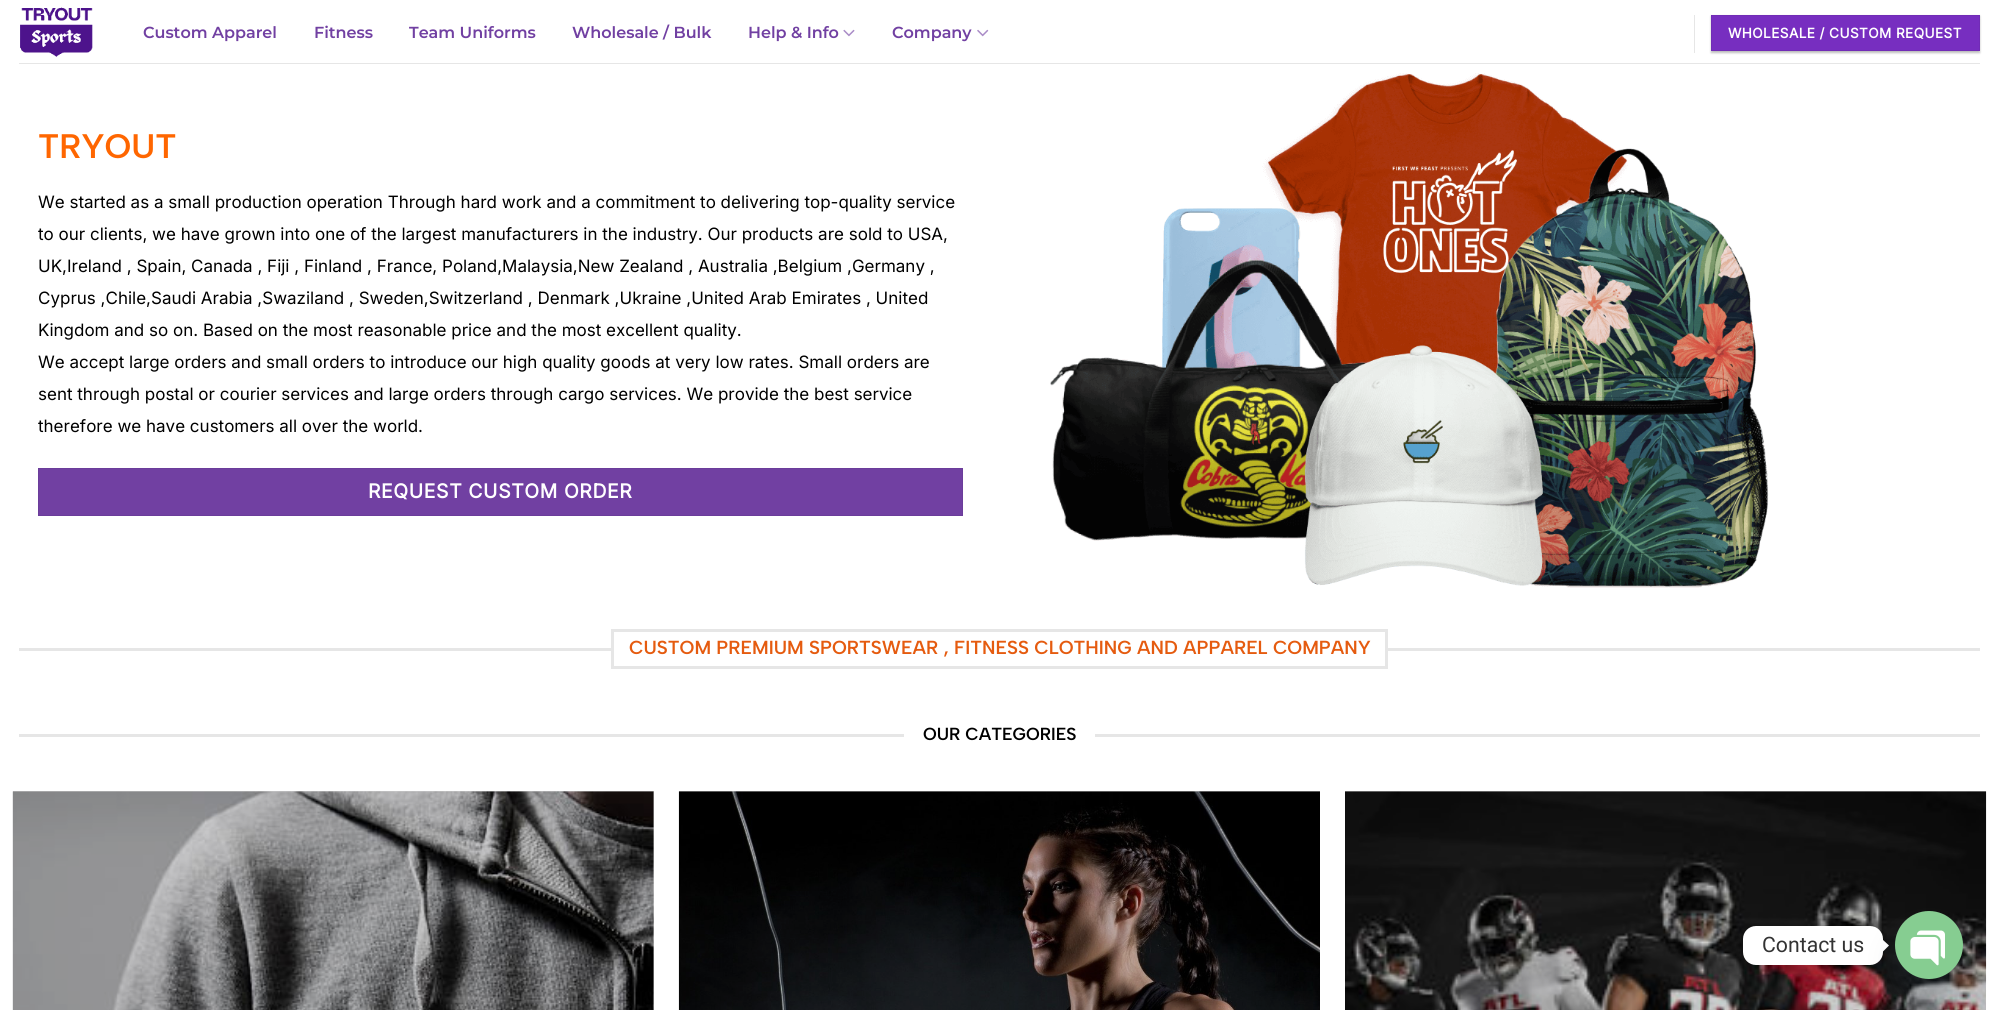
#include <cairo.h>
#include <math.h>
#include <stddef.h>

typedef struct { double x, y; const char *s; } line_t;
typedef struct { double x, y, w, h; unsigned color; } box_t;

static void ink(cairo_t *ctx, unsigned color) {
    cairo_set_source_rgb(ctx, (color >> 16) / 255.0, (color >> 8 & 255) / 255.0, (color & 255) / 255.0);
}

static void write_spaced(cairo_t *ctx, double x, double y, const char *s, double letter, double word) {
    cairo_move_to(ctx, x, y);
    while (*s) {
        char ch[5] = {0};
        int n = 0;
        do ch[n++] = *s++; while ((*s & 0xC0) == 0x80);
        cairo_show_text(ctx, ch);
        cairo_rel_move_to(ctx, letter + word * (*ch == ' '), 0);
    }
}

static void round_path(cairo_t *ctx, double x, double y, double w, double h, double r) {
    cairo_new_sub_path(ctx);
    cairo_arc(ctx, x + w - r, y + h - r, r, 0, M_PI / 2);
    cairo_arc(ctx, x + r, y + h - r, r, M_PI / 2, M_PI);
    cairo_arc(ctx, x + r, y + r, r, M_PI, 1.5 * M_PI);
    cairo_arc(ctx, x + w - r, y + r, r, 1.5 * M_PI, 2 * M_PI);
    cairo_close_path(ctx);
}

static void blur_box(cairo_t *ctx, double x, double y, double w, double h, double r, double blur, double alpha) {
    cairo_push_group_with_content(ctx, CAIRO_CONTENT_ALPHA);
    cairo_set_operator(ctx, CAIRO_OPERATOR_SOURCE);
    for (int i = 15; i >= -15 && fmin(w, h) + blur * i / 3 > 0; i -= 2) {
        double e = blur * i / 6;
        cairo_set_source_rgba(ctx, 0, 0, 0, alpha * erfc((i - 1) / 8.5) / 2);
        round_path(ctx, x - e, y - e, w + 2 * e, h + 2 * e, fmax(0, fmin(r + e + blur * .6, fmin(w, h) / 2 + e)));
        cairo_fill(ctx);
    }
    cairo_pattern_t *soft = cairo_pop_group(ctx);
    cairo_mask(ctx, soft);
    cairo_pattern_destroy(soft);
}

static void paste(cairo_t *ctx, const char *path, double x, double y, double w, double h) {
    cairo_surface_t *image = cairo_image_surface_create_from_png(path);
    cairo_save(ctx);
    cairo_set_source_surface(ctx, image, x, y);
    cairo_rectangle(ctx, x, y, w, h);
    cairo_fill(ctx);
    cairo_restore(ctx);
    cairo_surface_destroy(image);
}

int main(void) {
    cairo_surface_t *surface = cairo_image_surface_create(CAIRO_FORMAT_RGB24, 1998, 1010);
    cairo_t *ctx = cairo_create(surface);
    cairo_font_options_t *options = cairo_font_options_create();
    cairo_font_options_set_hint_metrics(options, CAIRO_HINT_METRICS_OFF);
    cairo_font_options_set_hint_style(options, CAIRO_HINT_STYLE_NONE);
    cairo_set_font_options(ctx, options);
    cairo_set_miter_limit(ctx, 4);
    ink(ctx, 0xFFFFFF);
    cairo_paint(ctx);
    {
        static const box_t items[] = {
            {1345, 791, 641, 1, 0xCFCFCF},
            {679, 791, 641, 1, 0xCFCFCF},
            {13, 791, 641, 219, 0xCFCFCF},
        };
        for (size_t i = 0; i < sizeof items / sizeof *items; i++) {
            ink(ctx, items[i].color);
            cairo_rectangle(ctx, items[i].x, items[i].y, items[i].w, items[i].h);
            cairo_fill(ctx);
        }
    }
    paste(ctx, "media/1.png", 20, 7, 73, 50);
    cairo_select_font_face(ctx, "Montserrat SemiBold", CAIRO_FONT_SLANT_NORMAL, CAIRO_FONT_WEIGHT_NORMAL);
    cairo_set_font_size(ctx, 16);
    ink(ctx, 0x7140A2);
    {
        static const line_t items[] = {
            {143, 38, "Custom Apparel"},
            {314, 38, "Fitness"},
            {409, 38, "Team Uniforms"},
            {572, 38, "Wholesale / Bulk"},
            {748, 38, "Help & Info"},
        };
        for (size_t i = 0; i < sizeof items / sizeof *items; i++) {
            cairo_move_to(ctx, items[i].x, items[i].y);
            cairo_show_text(ctx, items[i].s);
        }
    }
    paste(ctx, "media/2.png", 843, 29, 12, 8);
    cairo_move_to(ctx, 892, 38);
    cairo_show_text(ctx, "Company");
    paste(ctx, "media/3.png", 977, 29, 12, 8);
    ink(ctx, 0xE6E6E6);
    cairo_rectangle(ctx, 1694, 15, 1, 38);
    cairo_fill(ctx);
    ink(ctx, 0x000000);
    blur_box(ctx, 1711, 16, 269, 37, 0, 1, 0.24);
    blur_box(ctx, 1714, 19, 264, 31, 0, 2, 0.12);
    ink(ctx, 0x772EC0);
    cairo_rectangle(ctx, 1711.5, 15.5, 268, 35);
    cairo_fill_preserve(ctx);
    ink(ctx, 0x712CB6);
    cairo_set_line_width(ctx, 1);
    cairo_stroke(ctx);
    cairo_select_font_face(ctx, "Inter", CAIRO_FONT_SLANT_NORMAL, CAIRO_FONT_WEIGHT_BOLD);
    cairo_set_font_size(ctx, 13.6);
    ink(ctx, 0xFFFFFF);
    write_spaced(ctx, 1728, 38, "WHOLESALE / CUSTOM REQUEST", 0.4, 0);
    ink(ctx, 0xE6E6E6);
    cairo_rectangle(ctx, 19, 63, 1961, 1);
    cairo_fill(ctx);
    cairo_select_font_face(ctx, "Albert Sans SemiBold", CAIRO_FONT_SLANT_NORMAL, CAIRO_FONT_WEIGHT_NORMAL);
    cairo_set_font_size(ctx, 34);
    ink(ctx, 0xFF6600);
    cairo_move_to(ctx, 38, 158);
    cairo_show_text(ctx, "TRYOUT");
    cairo_select_font_face(ctx, "Inter", CAIRO_FONT_SLANT_NORMAL, CAIRO_FONT_WEIGHT_NORMAL);
    cairo_set_font_size(ctx, 17);
    ink(ctx, 0x000000);
    {
        static const line_t items[] = {
            {38, 208, "We started as a small production operation Through hard work and a commitment to delivering top-quality service"},
            {38, 240, "to our clients, we have grown into one of the largest manufacturers in the industry. Our products are sold to USA,"},
            {38, 272, "UK,Ireland , Spain, Canada , Fiji , Finland , France, Poland,Malaysia,New Zealand , Australia ,Belgium ,Germany ,"},
            {38, 304, "Cyprus ,Chile,Saudi Arabia ,Swaziland , Sweden,Switzerland , Denmark ,Ukraine ,United Arab Emirates , United"},
            {38, 336, "Kingdom and so on. Based on the most reasonable price and the most excellent quality."},
            {38, 368, "We accept large orders and small orders to introduce our high quality goods at very low rates. Small orders are"},
            {38, 400, "sent through postal or courier services and large orders through cargo services. We provide the best service"},
            {38, 432, "therefore we have customers all over the world."},
        };
        for (size_t i = 0; i < sizeof items / sizeof *items; i++) {
            cairo_move_to(ctx, items[i].x, items[i].y);
            cairo_show_text(ctx, items[i].s);
        }
    }
    ink(ctx, 0x7140A2);
    cairo_rectangle(ctx, 38.5, 468.5, 924, 47);
    cairo_fill_preserve(ctx);
    ink(ctx, 0x6B3D9A);
    cairo_stroke(ctx);
    cairo_select_font_face(ctx, "Inter", CAIRO_FONT_SLANT_NORMAL, CAIRO_FONT_WEIGHT_BOLD);
    cairo_set_font_size(ctx, 19.4);
    ink(ctx, 0xFFFFFF);
    write_spaced(ctx, 368, 498, "REQUEST CUSTOM ORDER", 0.6, 0);
    paste(ctx, "media/4.png", 1050, 73, 719, 515);
    ink(ctx, 0xE6E6E6);
    cairo_rectangle(ctx, 19, 648, 592, 3);
    cairo_fill(ctx);
    cairo_rectangle(ctx, 612.5, 630.5, 774, 37);
    cairo_set_line_width(ctx, 3);
    cairo_stroke(ctx);
    cairo_select_font_face(ctx, "Albert Sans SemiBold", CAIRO_FONT_SLANT_NORMAL, CAIRO_FONT_WEIGHT_NORMAL);
    cairo_set_font_size(ctx, 18.9);
    ink(ctx, 0xE55B0F);
    cairo_move_to(ctx, 629, 654);
    cairo_show_text(ctx, "CUSTOM PREMIUM SPORTSWEAR , FITNESS CLOTHING AND APPAREL COMPANY");
    ink(ctx, 0xE6E6E6);
    cairo_rectangle(ctx, 1388, 648, 592, 3);
    cairo_fill(ctx);
    cairo_rectangle(ctx, 19, 734, 885, 3);
    cairo_fill(ctx);
    cairo_set_font_size(ctx, 17.5);
    ink(ctx, 0x000000);
    cairo_move_to(ctx, 923, 740);
    cairo_show_text(ctx, "OUR CATEGORIES");
    ink(ctx, 0xE6E6E6);
    cairo_rectangle(ctx, 1095, 734, 885, 3);
    cairo_fill(ctx);
    paste(ctx, "media/5.png", 12, 791, 642, 219);
    paste(ctx, "media/6.png", 678, 791, 642, 219);
    paste(ctx, "media/7.png", 1345, 791, 642, 219);
    ink(ctx, 0x000000);
    blur_box(ctx, 1743, 928, 140, 38, 13, 5, 0.15);
    ink(ctx, 0xFFFFFF);
    round_path(ctx, 1743, 926, 140, 39, 13);
    cairo_fill(ctx);
    cairo_select_font_face(ctx, "Roboto", CAIRO_FONT_SLANT_NORMAL, CAIRO_FONT_WEIGHT_NORMAL);
    cairo_set_font_size(ctx, 21.25);
    ink(ctx, 0x333333);
    cairo_move_to(ctx, 1762, 952);
    cairo_show_text(ctx, "Contact us");
    ink(ctx, 0xFFFFFF);
    cairo_new_path(ctx);
    cairo_move_to(ctx, 1882.5, 952);
    cairo_line_to(ctx, 1882.5, 939.5);
    cairo_line_to(ctx, 1889, 945.5);
    cairo_close_path(ctx);
    cairo_fill(ctx);
    ink(ctx, 0x49687E);
    blur_box(ctx, 1895, 931, 68, 68, 34, 15, 0.16);
    paste(ctx, "media/8.png", 1895, 911, 68, 68);
    cairo_surface_write_to_png(surface, "image.png");
    cairo_font_options_destroy(options);
    cairo_destroy(ctx);
    cairo_surface_destroy(surface);
    return 0;
}
